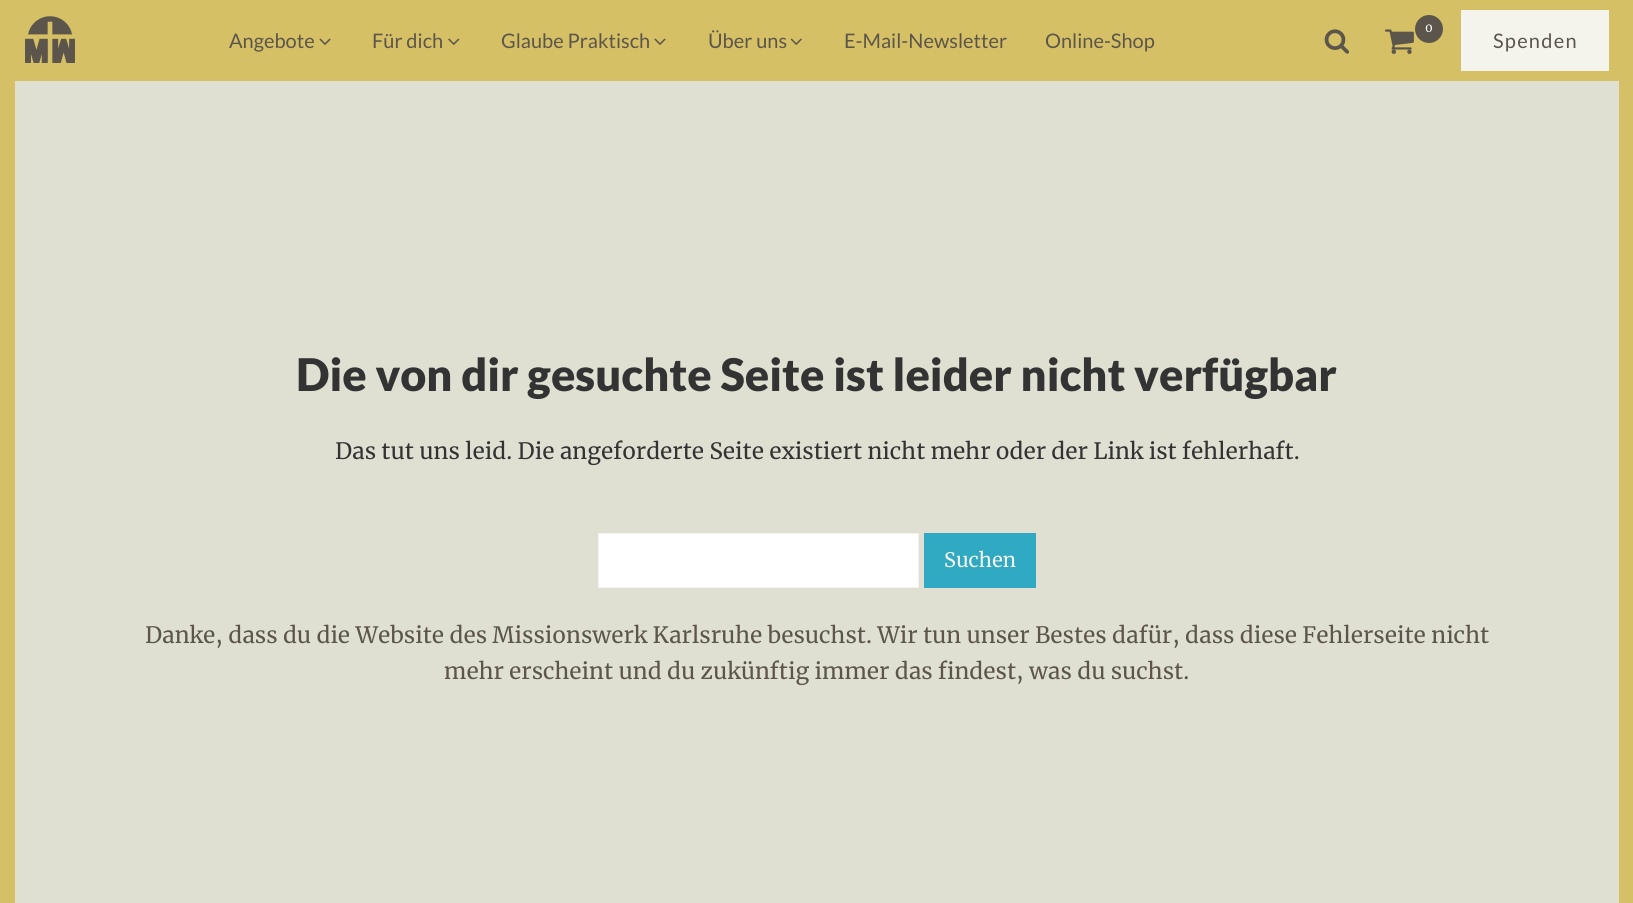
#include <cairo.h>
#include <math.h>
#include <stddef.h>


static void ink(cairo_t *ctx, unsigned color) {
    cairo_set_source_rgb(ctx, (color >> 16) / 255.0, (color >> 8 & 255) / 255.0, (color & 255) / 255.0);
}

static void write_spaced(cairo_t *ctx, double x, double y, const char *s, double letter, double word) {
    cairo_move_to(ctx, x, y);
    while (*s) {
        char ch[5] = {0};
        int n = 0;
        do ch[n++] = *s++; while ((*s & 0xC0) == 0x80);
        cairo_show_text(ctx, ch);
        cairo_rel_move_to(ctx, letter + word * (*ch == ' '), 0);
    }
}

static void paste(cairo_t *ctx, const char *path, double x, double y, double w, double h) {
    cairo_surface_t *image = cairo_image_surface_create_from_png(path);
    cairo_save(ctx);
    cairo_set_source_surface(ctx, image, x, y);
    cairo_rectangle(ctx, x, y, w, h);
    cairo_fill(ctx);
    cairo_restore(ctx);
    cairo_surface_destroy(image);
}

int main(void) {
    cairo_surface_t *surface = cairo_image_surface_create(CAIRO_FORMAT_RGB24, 1633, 903);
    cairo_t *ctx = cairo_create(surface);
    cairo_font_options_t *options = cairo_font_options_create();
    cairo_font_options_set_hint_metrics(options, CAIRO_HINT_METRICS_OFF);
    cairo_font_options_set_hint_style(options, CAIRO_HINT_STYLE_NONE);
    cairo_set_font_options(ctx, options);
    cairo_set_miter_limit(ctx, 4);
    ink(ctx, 0xDFDFD2);
    cairo_paint(ctx);
    ink(ctx, 0xD5C065);
    cairo_rectangle(ctx, 0, 0, 1633, 81);
    cairo_fill(ctx);
    paste(ctx, "media/1.png", 25, 16, 50, 47);
    cairo_select_font_face(ctx, "Lato", CAIRO_FONT_SLANT_NORMAL, CAIRO_FONT_WEIGHT_NORMAL);
    cairo_set_font_size(ctx, 20);
    ink(ctx, 0x5C554B);
    cairo_move_to(ctx, 229, 48);
    cairo_show_text(ctx, "Angebote");
    paste(ctx, "media/2.png", 319, 38, 12, 7);
    cairo_move_to(ctx, 372, 48);
    cairo_show_text(ctx, "Für dich");
    paste(ctx, "media/3.png", 448, 38, 12, 7);
    cairo_move_to(ctx, 501, 48);
    cairo_show_text(ctx, "Glaube Praktisch");
    paste(ctx, "media/2.png", 654, 38, 12, 7);
    cairo_move_to(ctx, 708, 48);
    cairo_show_text(ctx, "Über uns");
    paste(ctx, "media/4.png", 790, 38, 12, 7);
    cairo_move_to(ctx, 844, 48);
    cairo_show_text(ctx, "E-Mail-Newsletter");
    cairo_move_to(ctx, 1045, 48);
    cairo_show_text(ctx, "Online-Shop");
    paste(ctx, "media/5.png", 1324, 29, 25, 25);
    paste(ctx, "media/6.png", 1384, 29, 30, 25);
    cairo_arc(ctx, 1429, 29, 14, 0, 2 * M_PI);
    cairo_fill(ctx);
    cairo_select_font_face(ctx, "Merriweather", CAIRO_FONT_SLANT_NORMAL, CAIRO_FONT_WEIGHT_NORMAL);
    cairo_set_font_size(ctx, 12);
    ink(ctx, 0xFFFFFF);
    cairo_move_to(ctx, 1425, 32);
    cairo_show_text(ctx, "0");
    ink(ctx, 0xF4F4EC);
    cairo_rectangle(ctx, 1461, 10, 148, 61);
    cairo_fill(ctx);
    cairo_select_font_face(ctx, "Lato", CAIRO_FONT_SLANT_NORMAL, CAIRO_FONT_WEIGHT_NORMAL);
    cairo_set_font_size(ctx, 20);
    ink(ctx, 0x5C554B);
    write_spaced(ctx, 1493, 48, "Spenden", 1.25, 0);
    ink(ctx, 0xD5C065);
    cairo_rectangle(ctx, 1619, 81, 14, 822);
    cairo_fill(ctx);
    cairo_rectangle(ctx, 0, 81, 15, 822);
    cairo_fill(ctx);
    cairo_select_font_face(ctx, "Lato Black", CAIRO_FONT_SLANT_NORMAL, CAIRO_FONT_WEIGHT_NORMAL);
    cairo_set_font_size(ctx, 45);
    ink(ctx, 0x333333);
    cairo_move_to(ctx, 296, 391);
    cairo_show_text(ctx, "Die von dir gesuchte Seite ist leider nicht verfügbar");
    cairo_select_font_face(ctx, "Merriweather", CAIRO_FONT_SLANT_NORMAL, CAIRO_FONT_WEIGHT_NORMAL);
    cairo_set_font_size(ctx, 22.5);
    cairo_move_to(ctx, 335, 459);
    cairo_show_text(ctx, "Das tut uns leid. Die angeforderte Seite existiert nicht mehr oder der Link ist fehlerhaft.");
    ink(ctx, 0xFFFFFF);
    cairo_rectangle(ctx, 598.5, 533.5, 320, 54);
    cairo_fill_preserve(ctx);
    ink(ctx, 0xF4F4EC);
    cairo_set_line_width(ctx, 1);
    cairo_stroke(ctx);
    ink(ctx, 0x30A9C3);
    cairo_rectangle(ctx, 924, 533, 112, 55);
    cairo_fill(ctx);
    cairo_set_font_size(ctx, 20);
    ink(ctx, 0xF4F4EC);
    cairo_move_to(ctx, 944, 567);
    cairo_show_text(ctx, "Suchen");
    cairo_set_font_size(ctx, 22.5);
    ink(ctx, 0x5C554B);
    cairo_move_to(ctx, 145, 643);
    cairo_show_text(ctx, "Danke, dass du die Website des Missionswerk Karlsruhe besuchst. Wir tun unser Bestes dafür, dass diese Fehlerseite nicht");
    cairo_move_to(ctx, 444, 679);
    cairo_show_text(ctx, "mehr erscheint und du zukünftig immer das findest, was du suchst.");
    cairo_surface_write_to_png(surface, "image.png");
    cairo_font_options_destroy(options);
    cairo_destroy(ctx);
    cairo_surface_destroy(surface);
    return 0;
}
